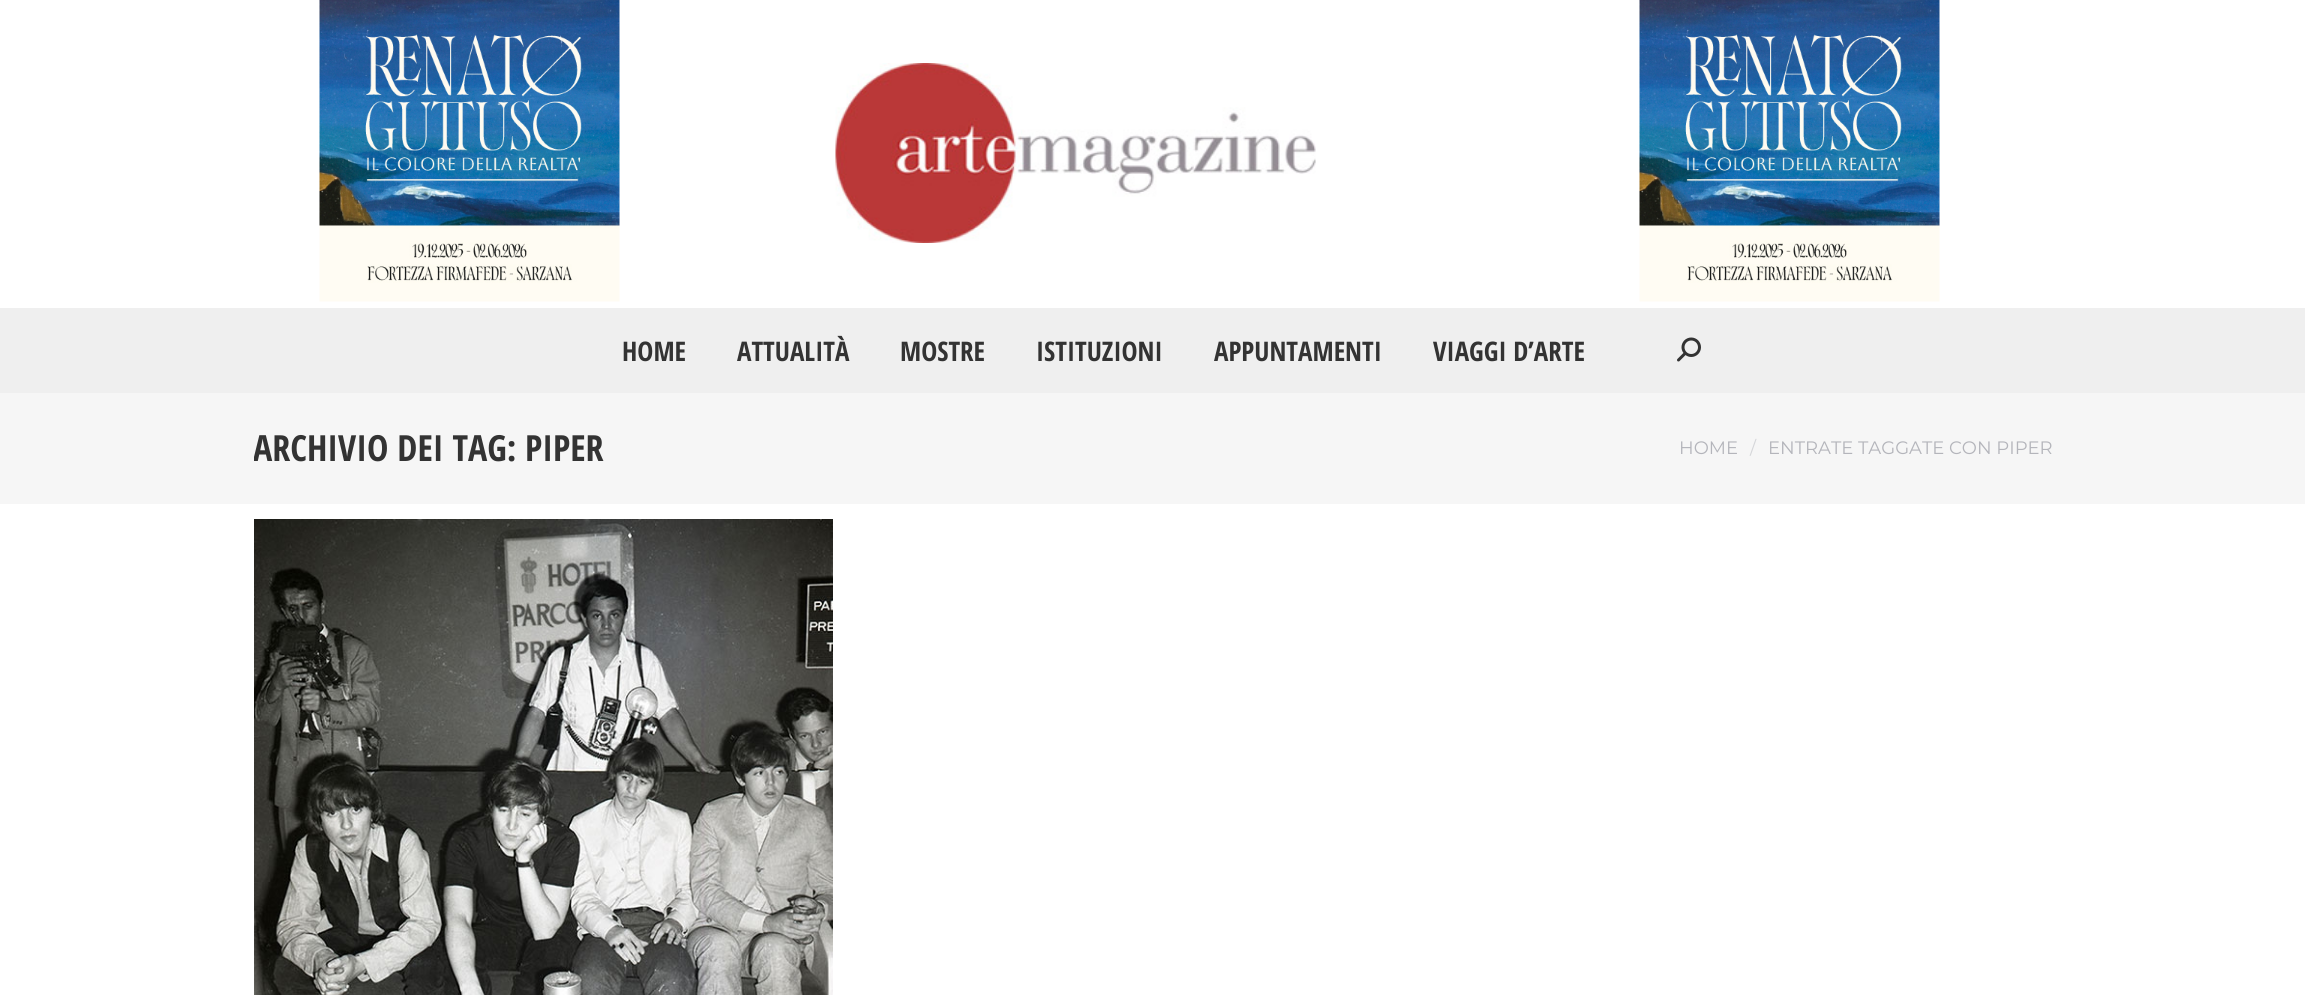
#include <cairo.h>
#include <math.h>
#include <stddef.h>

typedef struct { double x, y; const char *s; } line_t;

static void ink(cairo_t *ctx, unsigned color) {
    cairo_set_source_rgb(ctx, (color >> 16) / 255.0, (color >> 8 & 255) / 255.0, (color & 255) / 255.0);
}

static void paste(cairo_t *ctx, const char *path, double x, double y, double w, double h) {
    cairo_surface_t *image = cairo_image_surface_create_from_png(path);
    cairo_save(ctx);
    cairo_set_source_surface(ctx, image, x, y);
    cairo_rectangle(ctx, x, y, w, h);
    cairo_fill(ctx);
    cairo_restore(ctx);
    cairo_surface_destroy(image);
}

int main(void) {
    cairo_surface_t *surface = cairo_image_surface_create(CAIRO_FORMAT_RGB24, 2305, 995);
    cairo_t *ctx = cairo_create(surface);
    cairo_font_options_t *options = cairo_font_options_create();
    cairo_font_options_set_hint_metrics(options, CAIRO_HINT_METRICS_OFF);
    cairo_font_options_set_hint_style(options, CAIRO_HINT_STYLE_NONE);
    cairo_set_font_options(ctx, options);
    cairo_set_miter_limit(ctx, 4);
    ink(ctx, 0xFFFFFF);
    cairo_paint(ctx);
    paste(ctx, "media/1.png", 319, 0, 301, 302);
    paste(ctx, "media/2.png", 835, 63, 481, 180);
    paste(ctx, "media/3.png", 1639, 0, 301, 302);
    ink(ctx, 0xEFEFEF);
    cairo_rectangle(ctx, 0, 308, 2305, 85);
    cairo_fill(ctx);
    cairo_select_font_face(ctx, "Open Sans Condensed", CAIRO_FONT_SLANT_NORMAL, CAIRO_FONT_WEIGHT_BOLD);
    cairo_set_font_size(ctx, 27);
    ink(ctx, 0x333333);
    {
        static const line_t items[] = {
            {622, 361, "HOME"},
            {737, 361, "ATTUALITÀ"},
            {900, 361, "MOSTRE"},
            {1036, 361, "ISTITUZIONI"},
            {1214, 361, "APPUNTAMENTI"},
            {1433, 361, "VIAGGI D’ARTE"},
        };
        for (size_t i = 0; i < sizeof items / sizeof *items; i++) {
            cairo_move_to(ctx, items[i].x, items[i].y);
            cairo_show_text(ctx, items[i].s);
        }
    }
    paste(ctx, "media/4.png", 1677, 337, 24, 25);
    ink(ctx, 0xF6F6F6);
    cairo_rectangle(ctx, 0, 393, 2305, 111);
    cairo_fill(ctx);
    cairo_save(ctx);
    cairo_rectangle(ctx, 254, 423, 351, 51);
    cairo_clip(ctx);
    cairo_set_font_size(ctx, 36);
    ink(ctx, 0x333333);
    cairo_move_to(ctx, 253, 461);
    cairo_show_text(ctx, "ARCHIVIO DEI TAG:");
    cairo_restore(ctx);
    cairo_set_font_size(ctx, 36);
    ink(ctx, 0x333333);
    cairo_move_to(ctx, 525, 461);
    cairo_show_text(ctx, "PIPER");
    cairo_select_font_face(ctx, "Montserrat", CAIRO_FONT_SLANT_NORMAL, CAIRO_FONT_WEIGHT_NORMAL);
    cairo_set_font_size(ctx, 18);
    ink(ctx, 0xB4B5BB);
    cairo_move_to(ctx, 1679, 454);
    cairo_show_text(ctx, "HOME");
    ink(ctx, 0xD5D6D9);
    cairo_move_to(ctx, 1750, 454);
    cairo_show_text(ctx, "/");
    ink(ctx, 0xB4B5BB);
    cairo_move_to(ctx, 1768, 454);
    cairo_show_text(ctx, "ENTRATE TAGGATE CON PIPER");
    paste(ctx, "media/5.png", 254, 519, 579, 476);
    cairo_surface_write_to_png(surface, "image.png");
    cairo_font_options_destroy(options);
    cairo_destroy(ctx);
    cairo_surface_destroy(surface);
    return 0;
}
